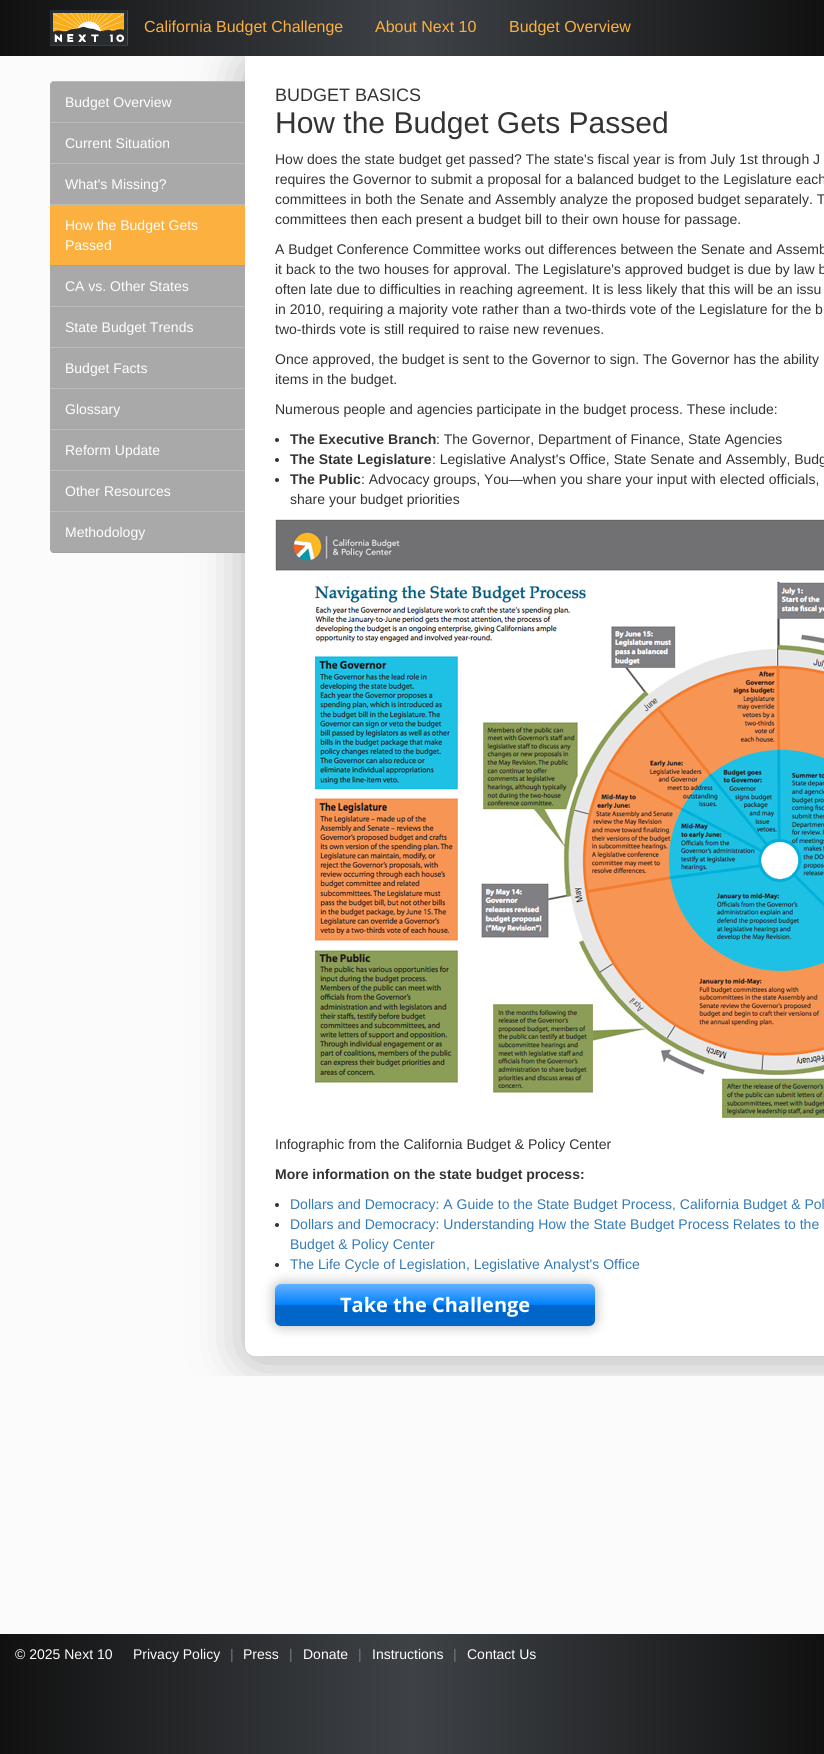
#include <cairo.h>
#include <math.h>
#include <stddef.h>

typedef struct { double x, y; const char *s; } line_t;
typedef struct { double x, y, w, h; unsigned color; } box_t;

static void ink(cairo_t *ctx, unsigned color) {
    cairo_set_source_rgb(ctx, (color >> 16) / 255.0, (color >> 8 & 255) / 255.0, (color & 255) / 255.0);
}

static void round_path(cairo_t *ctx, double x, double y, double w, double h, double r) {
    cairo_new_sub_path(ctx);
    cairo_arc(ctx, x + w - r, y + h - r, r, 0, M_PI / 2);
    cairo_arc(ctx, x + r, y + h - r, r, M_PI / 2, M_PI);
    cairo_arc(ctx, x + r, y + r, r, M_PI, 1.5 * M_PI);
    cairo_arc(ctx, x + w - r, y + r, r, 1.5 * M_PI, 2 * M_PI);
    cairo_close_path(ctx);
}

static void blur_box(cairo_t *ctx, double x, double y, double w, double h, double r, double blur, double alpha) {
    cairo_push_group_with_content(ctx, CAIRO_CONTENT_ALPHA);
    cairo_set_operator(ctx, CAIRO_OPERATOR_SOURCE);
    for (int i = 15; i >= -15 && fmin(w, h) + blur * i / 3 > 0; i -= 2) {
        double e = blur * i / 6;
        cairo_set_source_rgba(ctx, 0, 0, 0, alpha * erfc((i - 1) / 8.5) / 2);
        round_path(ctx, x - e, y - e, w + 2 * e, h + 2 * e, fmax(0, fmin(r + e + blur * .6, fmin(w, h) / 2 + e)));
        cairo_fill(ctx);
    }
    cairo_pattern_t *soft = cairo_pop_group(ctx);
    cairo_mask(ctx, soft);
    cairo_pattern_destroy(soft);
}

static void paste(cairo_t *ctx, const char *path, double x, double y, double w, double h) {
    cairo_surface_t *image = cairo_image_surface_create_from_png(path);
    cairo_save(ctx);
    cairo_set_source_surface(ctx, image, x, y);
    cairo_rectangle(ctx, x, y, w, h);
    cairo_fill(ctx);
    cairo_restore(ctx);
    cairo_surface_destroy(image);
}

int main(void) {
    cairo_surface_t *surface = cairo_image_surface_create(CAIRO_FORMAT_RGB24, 824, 1754);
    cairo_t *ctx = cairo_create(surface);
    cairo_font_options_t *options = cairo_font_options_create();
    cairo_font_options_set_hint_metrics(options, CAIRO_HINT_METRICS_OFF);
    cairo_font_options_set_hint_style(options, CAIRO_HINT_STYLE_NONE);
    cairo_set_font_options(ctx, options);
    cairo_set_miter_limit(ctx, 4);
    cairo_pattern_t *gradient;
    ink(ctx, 0xFBFBFB);
    cairo_paint(ctx);
    gradient = cairo_pattern_create_linear(0, 28, 824, 28);
    cairo_pattern_add_color_stop_rgba(gradient, 0, 0.067, 0.067, 0.067, 1);
    cairo_pattern_add_color_stop_rgba(gradient, 0.5, 0.243, 0.259, 0.278, 1);
    cairo_pattern_add_color_stop_rgba(gradient, 1, 0.067, 0.067, 0.067, 1);
    cairo_set_source(ctx, gradient);
    cairo_pattern_destroy(gradient);
    cairo_rectangle(ctx, 0, 0, 824, 56);
    cairo_fill(ctx);
    paste(ctx, "media/1.png", 50, 10, 78, 36);
    cairo_select_font_face(ctx, "Liberation Sans", CAIRO_FONT_SLANT_NORMAL, CAIRO_FONT_WEIGHT_NORMAL);
    cairo_set_font_size(ctx, 16);
    ink(ctx, 0xFCB040);
    {
        static const line_t items[] = {
            {144, 32, "California Budget Challenge"},
            {375, 32, "About Next 10"},
            {509, 32, "Budget Overview"},
        };
        for (size_t i = 0; i < sizeof items / sizeof *items; i++) {
            cairo_move_to(ctx, items[i].x, items[i].y);
            cairo_show_text(ctx, items[i].s);
        }
    }
    cairo_save(ctx);
    cairo_rectangle(ctx, 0, 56, 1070, 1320);
    cairo_clip(ctx);
    ink(ctx, 0x474747);
    blur_box(ctx, 245, 61, 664, 1300, 10, 25, 0.4);
    cairo_restore(ctx);
    ink(ctx, 0xA9A9A9);
    cairo_new_path(ctx);
    cairo_move_to(ctx, 54, 81);
    cairo_line_to(ctx, 245, 81);
    cairo_line_to(ctx, 245, 123);
    cairo_line_to(ctx, 50, 123);
    cairo_line_to(ctx, 50, 85);
    cairo_curve_to(ctx, 50, 83, 52, 81, 54, 81);
    cairo_close_path(ctx);
    cairo_fill(ctx);
    ink(ctx, 0xBBBBBB);
    cairo_new_path(ctx);
    cairo_move_to(ctx, 54, 82);
    cairo_line_to(ctx, 245, 82);
    cairo_line_to(ctx, 245, 81);
    cairo_line_to(ctx, 54, 81);
    cairo_curve_to(ctx, 52, 81, 50, 83, 50, 85);
    cairo_curve_to(ctx, 50, 83, 52, 82, 54, 82);
    cairo_close_path(ctx);
    cairo_fill(ctx);
    cairo_set_font_size(ctx, 14);
    ink(ctx, 0xFFFFFF);
    cairo_move_to(ctx, 65, 107);
    cairo_show_text(ctx, "Budget Overview");
    ink(ctx, 0xA9A9A9);
    cairo_rectangle(ctx, 50, 123, 195, 40);
    cairo_fill(ctx);
    ink(ctx, 0xBBBBBB);
    cairo_rectangle(ctx, 50, 122, 195, 1);
    cairo_fill(ctx);
    ink(ctx, 0xFFFFFF);
    cairo_move_to(ctx, 65, 148);
    cairo_show_text(ctx, "Current Situation");
    ink(ctx, 0xA9A9A9);
    cairo_rectangle(ctx, 50, 164, 195, 40);
    cairo_fill(ctx);
    ink(ctx, 0xBBBBBB);
    cairo_rectangle(ctx, 50, 163, 195, 1);
    cairo_fill(ctx);
    ink(ctx, 0xFFFFFF);
    cairo_move_to(ctx, 65, 189);
    cairo_show_text(ctx, "What's Missing?");
    {
        static const box_t items[] = {
            {50, 205, 195, 60, 0xFCB040},
            {50, 204, 195, 1, 0xBBBBBB},
            {50, 265, 195, 1, 0xA2A2A2},
        };
        for (size_t i = 0; i < sizeof items / sizeof *items; i++) {
            ink(ctx, items[i].color);
            cairo_rectangle(ctx, items[i].x, items[i].y, items[i].w, items[i].h);
            cairo_fill(ctx);
        }
    }
    ink(ctx, 0xFFFFFF);
    cairo_move_to(ctx, 65, 230);
    cairo_show_text(ctx, "How the Budget Gets");
    cairo_move_to(ctx, 65, 250);
    cairo_show_text(ctx, "Passed");
    ink(ctx, 0xA9A9A9);
    cairo_rectangle(ctx, 50, 266, 195, 40);
    cairo_fill(ctx);
    ink(ctx, 0xFFFFFF);
    cairo_move_to(ctx, 65, 291);
    cairo_show_text(ctx, "CA vs. Other States");
    ink(ctx, 0xA9A9A9);
    cairo_rectangle(ctx, 50, 307, 195, 40);
    cairo_fill(ctx);
    ink(ctx, 0xBBBBBB);
    cairo_rectangle(ctx, 50, 306, 195, 1);
    cairo_fill(ctx);
    ink(ctx, 0xFFFFFF);
    cairo_move_to(ctx, 65, 332);
    cairo_show_text(ctx, "State Budget Trends");
    ink(ctx, 0xA9A9A9);
    cairo_rectangle(ctx, 50, 348, 195, 40);
    cairo_fill(ctx);
    ink(ctx, 0xBBBBBB);
    cairo_rectangle(ctx, 50, 347, 195, 1);
    cairo_fill(ctx);
    ink(ctx, 0xFFFFFF);
    cairo_move_to(ctx, 65, 373);
    cairo_show_text(ctx, "Budget Facts");
    ink(ctx, 0xA9A9A9);
    cairo_rectangle(ctx, 50, 389, 195, 40);
    cairo_fill(ctx);
    ink(ctx, 0xBBBBBB);
    cairo_rectangle(ctx, 50, 388, 195, 1);
    cairo_fill(ctx);
    ink(ctx, 0xFFFFFF);
    cairo_move_to(ctx, 65, 414);
    cairo_show_text(ctx, "Glossary");
    ink(ctx, 0xA9A9A9);
    cairo_rectangle(ctx, 50, 430, 195, 40);
    cairo_fill(ctx);
    ink(ctx, 0xBBBBBB);
    cairo_rectangle(ctx, 50, 429, 195, 1);
    cairo_fill(ctx);
    ink(ctx, 0xFFFFFF);
    cairo_move_to(ctx, 65, 455);
    cairo_show_text(ctx, "Reform Update");
    ink(ctx, 0xA9A9A9);
    cairo_rectangle(ctx, 50, 471, 195, 40);
    cairo_fill(ctx);
    ink(ctx, 0xBBBBBB);
    cairo_rectangle(ctx, 50, 470, 195, 1);
    cairo_fill(ctx);
    ink(ctx, 0xFFFFFF);
    cairo_move_to(ctx, 65, 496);
    cairo_show_text(ctx, "Other Resources");
    ink(ctx, 0xA9A9A9);
    cairo_new_path(ctx);
    cairo_move_to(ctx, 50, 511);
    cairo_line_to(ctx, 245, 511);
    cairo_line_to(ctx, 245, 553);
    cairo_line_to(ctx, 54, 553);
    cairo_curve_to(ctx, 52, 553, 50, 551, 50, 549);
    cairo_close_path(ctx);
    cairo_fill(ctx);
    ink(ctx, 0xBBBBBB);
    cairo_rectangle(ctx, 50, 511, 195, 1);
    cairo_fill(ctx);
    ink(ctx, 0xA2A2A2);
    cairo_new_path(ctx);
    cairo_move_to(ctx, 245, 553);
    cairo_line_to(ctx, 245, 552);
    cairo_line_to(ctx, 54, 552);
    cairo_curve_to(ctx, 52, 552, 50, 551, 50, 549);
    cairo_curve_to(ctx, 50, 551, 52, 553, 54, 553);
    cairo_close_path(ctx);
    cairo_fill(ctx);
    ink(ctx, 0xFFFFFF);
    cairo_move_to(ctx, 65, 537);
    cairo_show_text(ctx, "Methodology");
    cairo_new_path(ctx);
    cairo_move_to(ctx, 245, 56);
    cairo_line_to(ctx, 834, 56);
    cairo_line_to(ctx, 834, 1356);
    cairo_line_to(ctx, 255, 1356);
    cairo_curve_to(ctx, 249.5, 1356, 245, 1351.5, 245, 1346);
    cairo_close_path(ctx);
    cairo_fill(ctx);
    cairo_set_font_size(ctx, 18);
    ink(ctx, 0x333333);
    cairo_move_to(ctx, 275, 101);
    cairo_show_text(ctx, "BUDGET BASICS");
    cairo_set_font_size(ctx, 30);
    cairo_move_to(ctx, 275, 133);
    cairo_show_text(ctx, "How the Budget Gets Passed");
    cairo_set_font_size(ctx, 14);
    {
        static const line_t items[] = {
            {275, 164, "How does the state budget get passed? The state's fiscal year is from July 1st through J"},
            {275, 184, "requires the Governor to submit a proposal for a balanced budget to the Legislature each"},
            {275, 204, "committees in both the Senate and Assembly analyze the proposed budget separately. T"},
            {275, 224, "committees then each present a budget bill to their own house for passage."},
            {275, 254, "A Budget Conference Committee works out differences between the Senate and Assemb"},
            {275, 274, "it back to the two houses for approval. The Legislature's approved budget is due by law b"},
            {275, 294, "often late due to difficulties in reaching agreement. It is less likely that this will be an issu"},
            {275, 314, "in 2010, requiring a majority vote rather than a two-thirds vote of the Legislature for the b"},
            {275, 334, "two-thirds vote is still required to raise new revenues."},
            {275, 364, "Once approved, the budget is sent to the Governor to sign. The Governor has the ability"},
            {275, 384, "items in the budget."},
            {275, 414, "Numerous people and agencies participate in the budget process. These include:"},
        };
        for (size_t i = 0; i < sizeof items / sizeof *items; i++) {
            cairo_move_to(ctx, items[i].x, items[i].y);
            cairo_show_text(ctx, items[i].s);
        }
    }
    cairo_new_path(ctx);
    cairo_arc(ctx, 277, 440, 2, 0, 2 * M_PI);
    cairo_fill(ctx);
    cairo_select_font_face(ctx, "Liberation Sans", CAIRO_FONT_SLANT_NORMAL, CAIRO_FONT_WEIGHT_BOLD);
    cairo_move_to(ctx, 290, 444);
    cairo_show_text(ctx, "The Executive Branch");
    cairo_select_font_face(ctx, "Liberation Sans", CAIRO_FONT_SLANT_NORMAL, CAIRO_FONT_WEIGHT_NORMAL);
    cairo_move_to(ctx, 436, 444);
    cairo_show_text(ctx, ": The Governor, Department of Finance, State Agencies");
    cairo_new_path(ctx);
    cairo_arc(ctx, 277, 460, 2, 0, 2 * M_PI);
    cairo_fill(ctx);
    cairo_select_font_face(ctx, "Liberation Sans", CAIRO_FONT_SLANT_NORMAL, CAIRO_FONT_WEIGHT_BOLD);
    cairo_move_to(ctx, 290, 464);
    cairo_show_text(ctx, "The State Legislature");
    cairo_select_font_face(ctx, "Liberation Sans", CAIRO_FONT_SLANT_NORMAL, CAIRO_FONT_WEIGHT_NORMAL);
    cairo_move_to(ctx, 432, 464);
    cairo_show_text(ctx, ": Legislative Analyst's Office, State Senate and Assembly, Budg");
    cairo_new_path(ctx);
    cairo_arc(ctx, 277, 480, 2, 0, 2 * M_PI);
    cairo_fill(ctx);
    cairo_select_font_face(ctx, "Liberation Sans", CAIRO_FONT_SLANT_NORMAL, CAIRO_FONT_WEIGHT_BOLD);
    cairo_move_to(ctx, 290, 484);
    cairo_show_text(ctx, "The Public");
    cairo_select_font_face(ctx, "Liberation Sans", CAIRO_FONT_SLANT_NORMAL, CAIRO_FONT_WEIGHT_NORMAL);
    cairo_move_to(ctx, 361, 484);
    cairo_show_text(ctx, ": Advocacy groups, You—when you share your input with elected officials,");
    cairo_move_to(ctx, 290, 504);
    cairo_show_text(ctx, "share your budget priorities");
    paste(ctx, "media/2.png", 275, 519, 549, 599);
    cairo_move_to(ctx, 275, 1149);
    cairo_show_text(ctx, "Infographic from the California Budget & Policy Center");
    cairo_select_font_face(ctx, "Liberation Sans", CAIRO_FONT_SLANT_NORMAL, CAIRO_FONT_WEIGHT_BOLD);
    cairo_move_to(ctx, 275, 1179);
    cairo_show_text(ctx, "More information on the state budget process:");
    cairo_new_path(ctx);
    cairo_arc(ctx, 277, 1205, 2, 0, 2 * M_PI);
    cairo_fill(ctx);
    cairo_select_font_face(ctx, "Liberation Sans", CAIRO_FONT_SLANT_NORMAL, CAIRO_FONT_WEIGHT_NORMAL);
    ink(ctx, 0x337AB7);
    cairo_move_to(ctx, 290, 1209);
    cairo_show_text(ctx, "Dollars and Democracy: A Guide to the State Budget Process, California Budget & Pol");
    ink(ctx, 0x333333);
    cairo_new_path(ctx);
    cairo_arc(ctx, 277, 1225, 2, 0, 2 * M_PI);
    cairo_fill(ctx);
    ink(ctx, 0x337AB7);
    cairo_move_to(ctx, 290, 1229);
    cairo_show_text(ctx, "Dollars and Democracy: Understanding How the State Budget Process Relates to the");
    cairo_move_to(ctx, 290, 1249);
    cairo_show_text(ctx, "Budget & Policy Center");
    ink(ctx, 0x333333);
    cairo_new_path(ctx);
    cairo_arc(ctx, 277, 1265, 2, 0, 2 * M_PI);
    cairo_fill(ctx);
    ink(ctx, 0x337AB7);
    cairo_move_to(ctx, 290, 1269);
    cairo_show_text(ctx, "The Life Cycle of Legislation, Legislative Analyst's Office");
    ink(ctx, 0x000000);
    blur_box(ctx, 275, 1284, 320, 42, 6, 6.5, 0.3);
    gradient = cairo_pattern_create_linear(435, 1284, 435, 1326);
    cairo_pattern_add_color_stop_rgba(gradient, 0, 0.392, 0.698, 1, 1);
    cairo_pattern_add_color_stop_rgba(gradient, 0.5, 0, 0.502, 0.992, 1);
    cairo_pattern_add_color_stop_rgba(gradient, 0.51, 0, 0.4, 0.792, 1);
    cairo_pattern_add_color_stop_rgba(gradient, 1, 0, 0.4, 0.792, 1);
    cairo_set_source(ctx, gradient);
    cairo_pattern_destroy(gradient);
    round_path(ctx, 275, 1284, 320, 42, 6);
    cairo_fill(ctx);
    cairo_select_font_face(ctx, "Open Sans", CAIRO_FONT_SLANT_NORMAL, CAIRO_FONT_WEIGHT_BOLD);
    cairo_set_font_size(ctx, 20);
    ink(ctx, 0xFFFFFF);
    cairo_move_to(ctx, 340, 1312);
    cairo_show_text(ctx, "Take the Challenge");
    gradient = cairo_pattern_create_linear(0, 1694, 824, 1694);
    cairo_pattern_add_color_stop_rgba(gradient, 0, 0.067, 0.067, 0.067, 1);
    cairo_pattern_add_color_stop_rgba(gradient, 0.5, 0.243, 0.259, 0.278, 1);
    cairo_pattern_add_color_stop_rgba(gradient, 1, 0.067, 0.067, 0.067, 1);
    cairo_set_source(ctx, gradient);
    cairo_pattern_destroy(gradient);
    cairo_rectangle(ctx, 0, 1634, 824, 120);
    cairo_fill(ctx);
    cairo_select_font_face(ctx, "Liberation Sans", CAIRO_FONT_SLANT_NORMAL, CAIRO_FONT_WEIGHT_NORMAL);
    cairo_set_font_size(ctx, 14);
    ink(ctx, 0xFFFFFF);
    cairo_move_to(ctx, 15, 1659);
    cairo_show_text(ctx, "© 2025 Next 10");
    cairo_move_to(ctx, 133, 1659);
    cairo_show_text(ctx, "Privacy Policy");
    ink(ctx, 0x777777);
    cairo_move_to(ctx, 230, 1659);
    cairo_show_text(ctx, "|");
    ink(ctx, 0xFFFFFF);
    cairo_move_to(ctx, 243, 1659);
    cairo_show_text(ctx, "Press");
    ink(ctx, 0x777777);
    cairo_move_to(ctx, 289, 1659);
    cairo_show_text(ctx, "|");
    ink(ctx, 0xFFFFFF);
    cairo_move_to(ctx, 303, 1659);
    cairo_show_text(ctx, "Donate");
    ink(ctx, 0x777777);
    cairo_move_to(ctx, 358, 1659);
    cairo_show_text(ctx, "|");
    ink(ctx, 0xFFFFFF);
    cairo_move_to(ctx, 372, 1659);
    cairo_show_text(ctx, "Instructions");
    ink(ctx, 0x777777);
    cairo_move_to(ctx, 453, 1659);
    cairo_show_text(ctx, "|");
    ink(ctx, 0xFFFFFF);
    cairo_move_to(ctx, 467, 1659);
    cairo_show_text(ctx, "Contact Us");
    cairo_surface_write_to_png(surface, "image.png");
    cairo_font_options_destroy(options);
    cairo_destroy(ctx);
    cairo_surface_destroy(surface);
    return 0;
}
